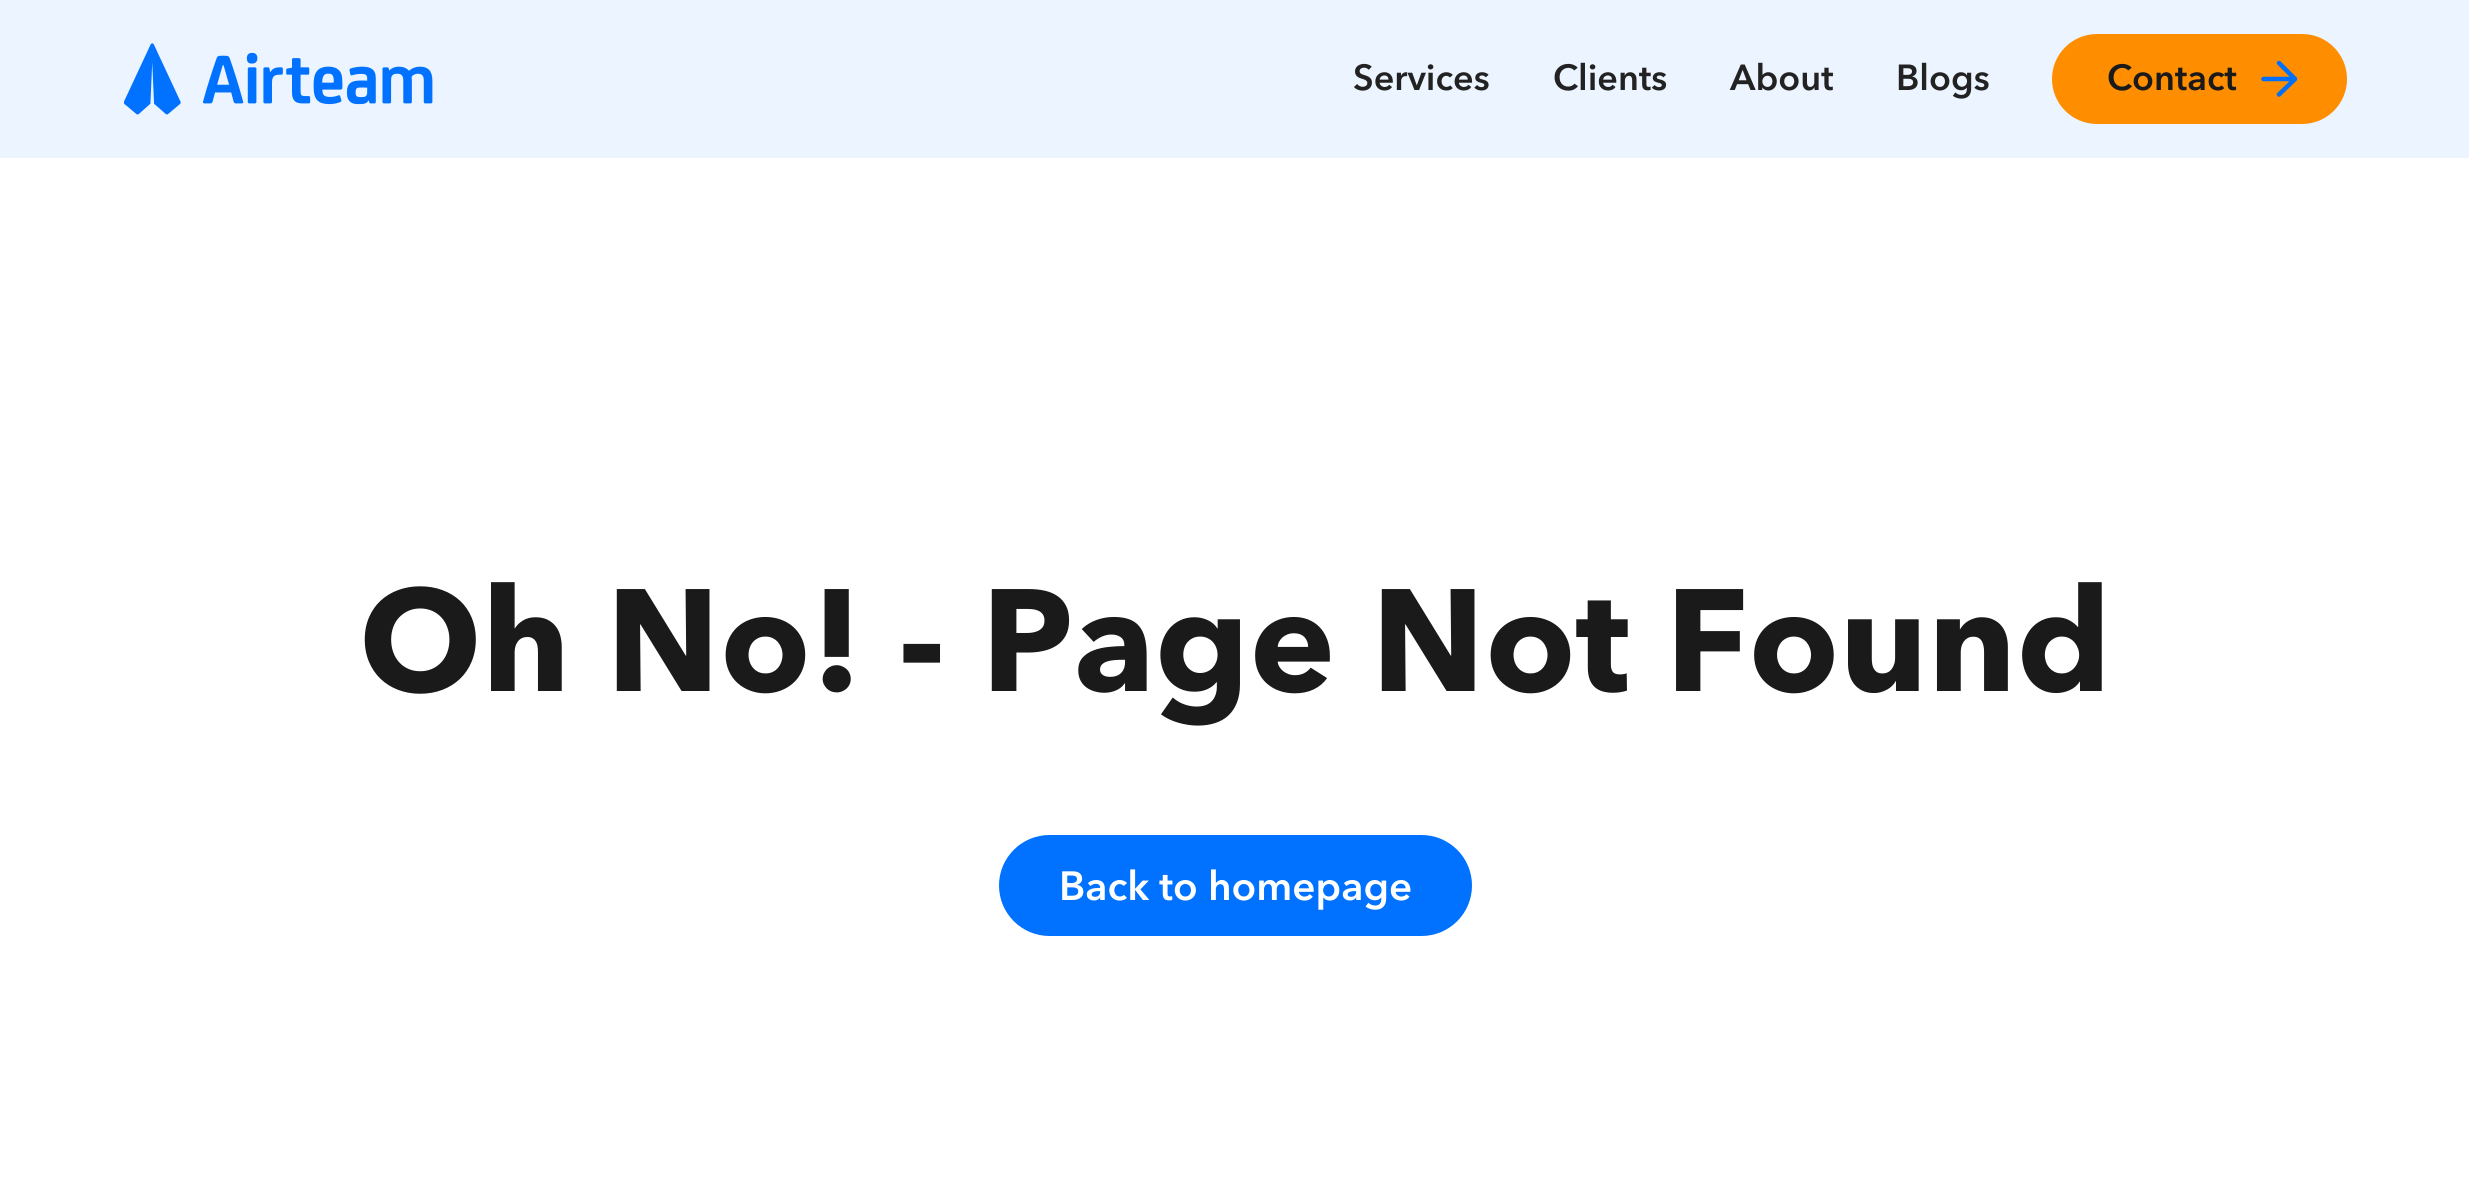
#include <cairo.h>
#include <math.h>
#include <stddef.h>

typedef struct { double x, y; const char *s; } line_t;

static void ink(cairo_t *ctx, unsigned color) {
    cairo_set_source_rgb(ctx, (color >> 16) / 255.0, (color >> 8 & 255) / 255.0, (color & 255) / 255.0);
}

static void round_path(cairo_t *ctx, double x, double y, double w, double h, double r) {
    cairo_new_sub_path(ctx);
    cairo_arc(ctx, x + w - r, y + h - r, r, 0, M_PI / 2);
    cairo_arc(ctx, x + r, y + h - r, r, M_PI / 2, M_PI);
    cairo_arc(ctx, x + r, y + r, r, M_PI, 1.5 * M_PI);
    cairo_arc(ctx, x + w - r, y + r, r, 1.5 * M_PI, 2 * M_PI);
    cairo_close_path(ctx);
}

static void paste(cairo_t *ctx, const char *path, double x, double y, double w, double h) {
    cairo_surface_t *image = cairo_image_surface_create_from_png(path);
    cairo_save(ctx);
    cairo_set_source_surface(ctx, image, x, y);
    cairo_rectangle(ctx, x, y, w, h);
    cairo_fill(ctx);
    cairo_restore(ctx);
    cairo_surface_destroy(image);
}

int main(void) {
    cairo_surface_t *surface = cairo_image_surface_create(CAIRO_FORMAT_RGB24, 2469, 1187);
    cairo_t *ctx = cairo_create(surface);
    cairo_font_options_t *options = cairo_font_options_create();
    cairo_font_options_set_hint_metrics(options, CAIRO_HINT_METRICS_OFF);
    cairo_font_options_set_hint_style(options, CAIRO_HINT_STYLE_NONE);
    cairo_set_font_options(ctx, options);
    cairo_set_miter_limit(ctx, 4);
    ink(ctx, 0xFFFFFF);
    cairo_paint(ctx);
    ink(ctx, 0xEBF4FF);
    cairo_rectangle(ctx, 0, 0, 2469, 158);
    cairo_fill(ctx);
    paste(ctx, "media/1.png", 124, 43, 309, 72);
    cairo_select_font_face(ctx, "Avenir Next SemiBold", CAIRO_FONT_SLANT_NORMAL, CAIRO_FONT_WEIGHT_NORMAL);
    cairo_set_font_size(ctx, 36);
    ink(ctx, 0x222222);
    {
        static const line_t items[] = {
            {1353, 90, "Services"},
            {1553, 90, "Clients"},
            {1730, 90, "About"},
            {1896, 90, "Blogs"},
        };
        for (size_t i = 0; i < sizeof items / sizeof *items; i++) {
            cairo_move_to(ctx, items[i].x, items[i].y);
            cairo_show_text(ctx, items[i].s);
        }
    }
    ink(ctx, 0xFF8D00);
    round_path(ctx, 2052, 34, 295, 90, 45);
    cairo_fill(ctx);
    ink(ctx, 0x1A1A1A);
    cairo_move_to(ctx, 2107, 90);
    cairo_show_text(ctx, "Contact");
    cairo_new_path(ctx);
    cairo_move_to(ctx, 2263.5, 79);
    cairo_line_to(ctx, 2295, 79);
    cairo_move_to(ctx, 2279, 63);
    cairo_line_to(ctx, 2295, 79);
    cairo_line_to(ctx, 2279, 94.5);
    ink(ctx, 0x006FF9);
    cairo_set_line_width(ctx, 4.5);
    cairo_set_line_cap(ctx, CAIRO_LINE_CAP_ROUND);
    cairo_set_line_join(ctx, CAIRO_LINE_JOIN_ROUND);
    cairo_stroke(ctx);
    cairo_select_font_face(ctx, "Avenir Next", CAIRO_FONT_SLANT_NORMAL, CAIRO_FONT_WEIGHT_BOLD);
    cairo_set_font_size(ctx, 144);
    ink(ctx, 0x1A1A1A);
    cairo_move_to(ctx, 359, 691);
    cairo_show_text(ctx, "Oh No! - Page Not Found");
    ink(ctx, 0x0072FF);
    round_path(ctx, 1001.5, 837.5, 468, 96, 48);
    cairo_fill_preserve(ctx);
    cairo_set_line_width(ctx, 5);
    cairo_set_line_cap(ctx, CAIRO_LINE_CAP_BUTT);
    cairo_set_line_join(ctx, CAIRO_LINE_JOIN_MITER);
    cairo_stroke(ctx);
    cairo_select_font_face(ctx, "Avenir Next SemiBold", CAIRO_FONT_SLANT_NORMAL, CAIRO_FONT_WEIGHT_NORMAL);
    cairo_set_font_size(ctx, 40.5);
    ink(ctx, 0xFFFFFF);
    cairo_move_to(ctx, 1059, 900);
    cairo_show_text(ctx, "Back to homepage");
    cairo_surface_write_to_png(surface, "image.png");
    cairo_font_options_destroy(options);
    cairo_destroy(ctx);
    cairo_surface_destroy(surface);
    return 0;
}
